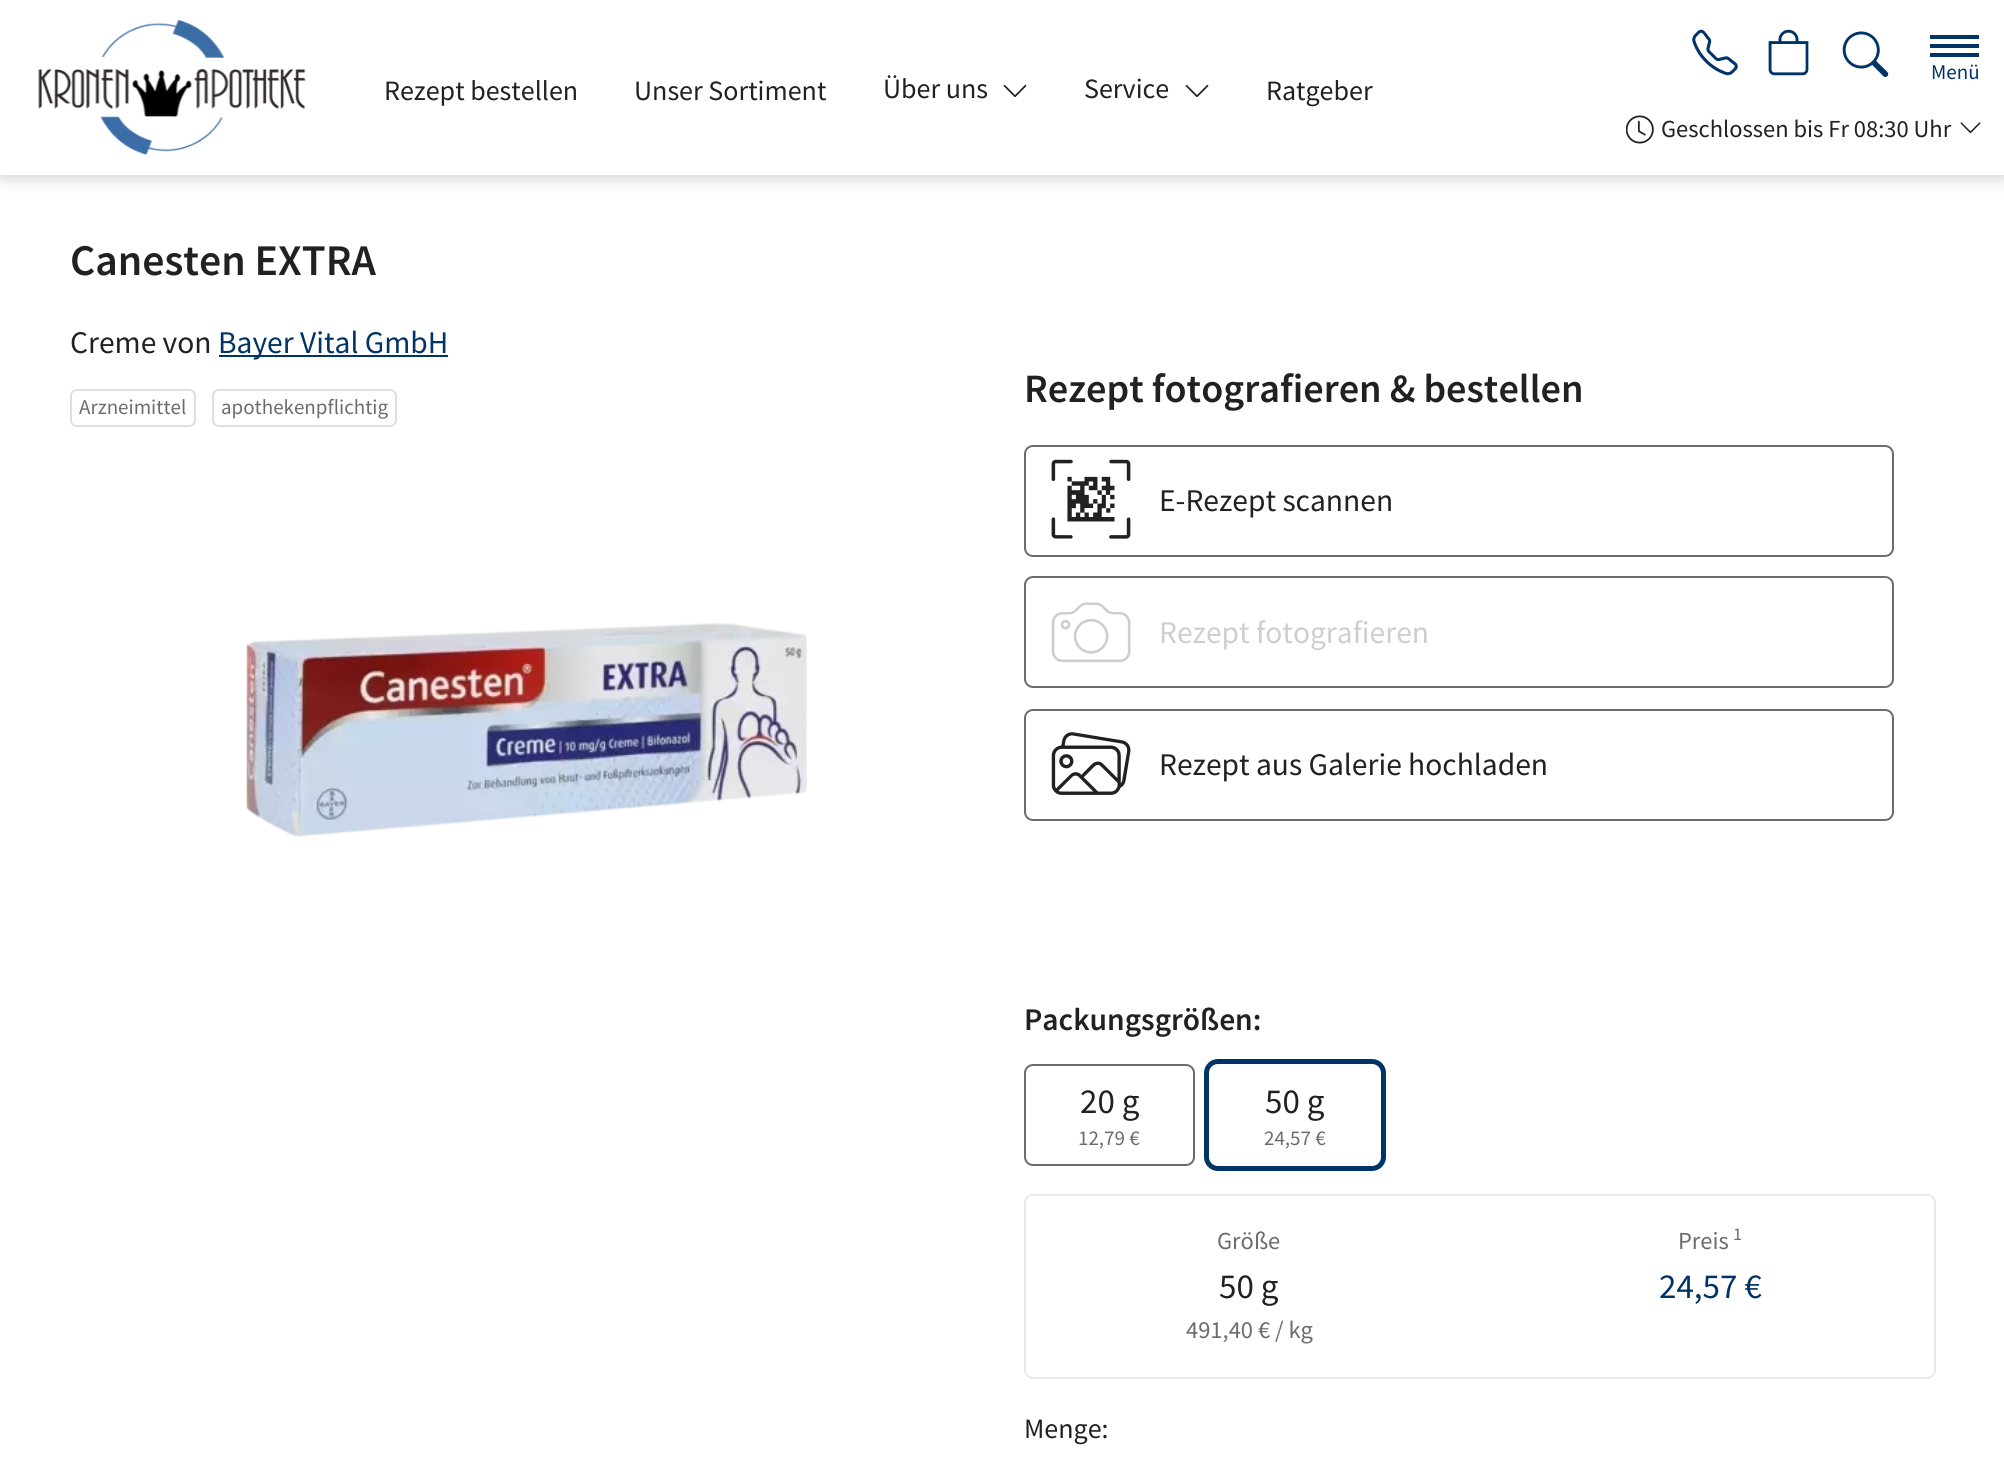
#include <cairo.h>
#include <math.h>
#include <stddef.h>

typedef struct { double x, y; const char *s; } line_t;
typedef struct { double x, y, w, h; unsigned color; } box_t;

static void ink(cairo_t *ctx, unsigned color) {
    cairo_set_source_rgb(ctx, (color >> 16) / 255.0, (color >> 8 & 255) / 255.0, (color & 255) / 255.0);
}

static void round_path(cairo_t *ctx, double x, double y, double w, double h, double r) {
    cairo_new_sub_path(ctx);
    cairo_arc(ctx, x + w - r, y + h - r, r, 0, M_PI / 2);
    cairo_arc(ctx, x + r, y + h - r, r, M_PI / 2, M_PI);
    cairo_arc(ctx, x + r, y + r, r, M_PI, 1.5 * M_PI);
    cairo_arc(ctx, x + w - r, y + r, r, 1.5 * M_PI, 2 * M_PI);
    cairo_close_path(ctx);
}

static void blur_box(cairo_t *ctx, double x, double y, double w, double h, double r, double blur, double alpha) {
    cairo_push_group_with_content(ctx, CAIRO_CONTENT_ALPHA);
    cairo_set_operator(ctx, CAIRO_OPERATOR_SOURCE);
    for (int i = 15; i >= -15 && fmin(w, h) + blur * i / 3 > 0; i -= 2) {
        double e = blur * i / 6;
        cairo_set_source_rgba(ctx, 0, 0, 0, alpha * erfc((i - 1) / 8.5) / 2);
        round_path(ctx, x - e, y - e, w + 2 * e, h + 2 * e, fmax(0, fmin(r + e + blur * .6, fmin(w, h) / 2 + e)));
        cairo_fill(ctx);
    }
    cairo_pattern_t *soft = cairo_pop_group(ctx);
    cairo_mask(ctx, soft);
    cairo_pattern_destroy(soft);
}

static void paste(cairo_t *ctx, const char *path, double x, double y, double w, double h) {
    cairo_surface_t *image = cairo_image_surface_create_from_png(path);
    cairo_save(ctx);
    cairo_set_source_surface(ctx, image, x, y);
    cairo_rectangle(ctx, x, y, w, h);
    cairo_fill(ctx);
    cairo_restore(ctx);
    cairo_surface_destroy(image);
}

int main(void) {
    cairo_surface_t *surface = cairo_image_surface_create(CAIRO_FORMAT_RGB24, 2004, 1460);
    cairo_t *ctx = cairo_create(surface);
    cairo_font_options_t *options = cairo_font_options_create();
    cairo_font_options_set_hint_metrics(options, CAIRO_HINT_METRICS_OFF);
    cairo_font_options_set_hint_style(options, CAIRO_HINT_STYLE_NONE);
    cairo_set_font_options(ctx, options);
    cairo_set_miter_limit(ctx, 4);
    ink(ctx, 0xFFFFFF);
    cairo_paint(ctx);
    ink(ctx, 0x000000);
    blur_box(ctx, 0, 0, 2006, 175, 0, 9, 0.25);
    ink(ctx, 0xFFFFFF);
    cairo_rectangle(ctx, 0, 0, 2004, 175);
    cairo_fill(ctx);
    paste(ctx, "media/1.png", 38, 20, 268, 135);
    cairo_select_font_face(ctx, "Source Sans Pro", CAIRO_FONT_SLANT_NORMAL, CAIRO_FONT_WEIGHT_NORMAL);
    cairo_set_font_size(ctx, 28);
    ink(ctx, 0x212121);
    {
        static const line_t items[] = {
            {384, 100, "Rezept bestellen"},
            {634, 100, "Unser Sortiment"},
            {883, 98, "Über uns"},
        };
        for (size_t i = 0; i < sizeof items / sizeof *items; i++) {
            cairo_move_to(ctx, items[i].x, items[i].y);
            cairo_show_text(ctx, items[i].s);
        }
    }
    paste(ctx, "media/2.png", 1003, 84, 24, 14);
    cairo_move_to(ctx, 1084, 98);
    cairo_show_text(ctx, "Service");
    paste(ctx, "media/2.png", 1185, 84, 24, 14);
    cairo_move_to(ctx, 1266, 100);
    cairo_show_text(ctx, "Ratgeber");
    paste(ctx, "media/3.png", 1692, 29, 46, 47);
    paste(ctx, "media/4.png", 1768, 29, 41, 47);
    paste(ctx, "media/5.png", 1842, 31, 47, 46);
    {
        static const box_t items[] = {
            {1930, 44, 49, 4, 0x003366},
            {1930, 35, 49, 4, 0x003366},
            {1930, 53, 49, 4, 0x003366},
        };
        for (size_t i = 0; i < sizeof items / sizeof *items; i++) {
            ink(ctx, items[i].color);
            cairo_rectangle(ctx, items[i].x, items[i].y, items[i].w, items[i].h);
            cairo_fill(ctx);
        }
    }
    cairo_set_font_size(ctx, 21);
    cairo_move_to(ctx, 1931, 79);
    cairo_show_text(ctx, "Menü");
    paste(ctx, "media/6.png", 1626, 115, 28, 29);
    cairo_set_font_size(ctx, 24.5);
    ink(ctx, 0x212121);
    cairo_move_to(ctx, 1661, 137);
    cairo_show_text(ctx, "Geschlossen bis Fr 08:30 Uhr");
    paste(ctx, "media/7.png", 1960, 122, 21, 12);
    cairo_select_font_face(ctx, "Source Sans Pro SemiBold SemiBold", CAIRO_FONT_SLANT_NORMAL, CAIRO_FONT_WEIGHT_NORMAL);
    cairo_set_font_size(ctx, 43.75);
    cairo_move_to(ctx, 70, 275);
    cairo_show_text(ctx, "Canesten EXTRA");
    cairo_select_font_face(ctx, "Source Sans Pro", CAIRO_FONT_SLANT_NORMAL, CAIRO_FONT_WEIGHT_NORMAL);
    cairo_set_font_size(ctx, 31.5);
    cairo_move_to(ctx, 70, 353);
    cairo_show_text(ctx, "Creme von");
    ink(ctx, 0x003366);
    cairo_rectangle(ctx, 219, 355, 229, 2);
    cairo_fill(ctx);
    cairo_move_to(ctx, 218, 353);
    cairo_show_text(ctx, "Bayer Vital GmbH");
    round_path(ctx, 71, 390, 124, 36, 6);
    ink(ctx, 0xDEDEDE);
    cairo_stroke(ctx);
    cairo_set_font_size(ctx, 21);
    ink(ctx, 0x6C6C6C);
    cairo_move_to(ctx, 79, 414);
    cairo_show_text(ctx, "Arzneimittel");
    round_path(ctx, 213, 390, 183, 36, 6);
    ink(ctx, 0xDEDEDE);
    cairo_stroke(ctx);
    ink(ctx, 0x6C6C6C);
    cairo_move_to(ctx, 221, 414);
    cairo_show_text(ctx, "apothekenpflichtig");
    paste(ctx, "media/8.png", 246, 623, 561, 214);
    cairo_select_font_face(ctx, "Source Sans Pro SemiBold SemiBold", CAIRO_FONT_SLANT_NORMAL, CAIRO_FONT_WEIGHT_NORMAL);
    cairo_set_font_size(ctx, 40.25);
    ink(ctx, 0x212121);
    cairo_move_to(ctx, 1024, 402);
    cairo_show_text(ctx, "Rezept fotografieren & bestellen");
    round_path(ctx, 1025, 446, 868, 110, 8);
    ink(ctx, 0x6C6C6C);
    cairo_stroke(ctx);
    paste(ctx, "media/9.png", 1051, 459, 80, 80);
    cairo_select_font_face(ctx, "Source Sans Pro", CAIRO_FONT_SLANT_NORMAL, CAIRO_FONT_WEIGHT_NORMAL);
    cairo_set_font_size(ctx, 31.5);
    ink(ctx, 0x212121);
    cairo_move_to(ctx, 1159, 511);
    cairo_show_text(ctx, "E-Rezept scannen");
    round_path(ctx, 1025, 577, 868, 110, 8);
    ink(ctx, 0x6C6C6C);
    cairo_stroke(ctx);
    paste(ctx, "media/10.png", 1051, 602, 80, 61);
    ink(ctx, 0xCECECE);
    cairo_move_to(ctx, 1159, 643);
    cairo_show_text(ctx, "Rezept fotografieren");
    round_path(ctx, 1025, 710, 868, 110, 8);
    ink(ctx, 0x6C6C6C);
    cairo_stroke(ctx);
    paste(ctx, "media/11.png", 1051, 732, 80, 63);
    ink(ctx, 0x212121);
    cairo_move_to(ctx, 1159, 775);
    cairo_show_text(ctx, "Rezept aus Galerie hochladen");
    cairo_select_font_face(ctx, "Source Sans Pro SemiBold SemiBold", CAIRO_FONT_SLANT_NORMAL, CAIRO_FONT_WEIGHT_NORMAL);
    cairo_move_to(ctx, 1024, 1030);
    cairo_show_text(ctx, "Packungsgrößen:");
    round_path(ctx, 1025, 1065, 169, 100, 8);
    ink(ctx, 0x6C6C6C);
    cairo_stroke(ctx);
    cairo_select_font_face(ctx, "Source Sans Pro", CAIRO_FONT_SLANT_NORMAL, CAIRO_FONT_WEIGHT_NORMAL);
    cairo_set_font_size(ctx, 35);
    ink(ctx, 0x212121);
    cairo_move_to(ctx, 1080, 1113);
    cairo_show_text(ctx, "20 g");
    cairo_set_font_size(ctx, 21);
    ink(ctx, 0x6C6C6C);
    cairo_move_to(ctx, 1078, 1145);
    cairo_show_text(ctx, "12,79 €");
    round_path(ctx, 1206.5, 1061.5, 177, 107, 11.5);
    ink(ctx, 0x003366);
    cairo_set_line_width(ctx, 5);
    cairo_stroke(ctx);
    cairo_set_font_size(ctx, 35);
    ink(ctx, 0x212121);
    cairo_move_to(ctx, 1265, 1113);
    cairo_show_text(ctx, "50 g");
    cairo_set_font_size(ctx, 21);
    ink(ctx, 0x6C6C6C);
    cairo_move_to(ctx, 1264, 1145);
    cairo_show_text(ctx, "24,57 €");
    round_path(ctx, 1025, 1195, 910, 183, 8);
    ink(ctx, 0xE9E9E9);
    cairo_set_line_width(ctx, 2);
    cairo_stroke(ctx);
    cairo_set_font_size(ctx, 24.5);
    ink(ctx, 0x6C6C6C);
    cairo_move_to(ctx, 1217, 1249);
    cairo_show_text(ctx, "Größe");
    cairo_set_font_size(ctx, 35);
    ink(ctx, 0x212121);
    cairo_move_to(ctx, 1219, 1298);
    cairo_show_text(ctx, "50 g");
    cairo_set_font_size(ctx, 24.5);
    ink(ctx, 0x6C6C6C);
    cairo_move_to(ctx, 1186, 1338);
    cairo_show_text(ctx, "491,40 € / kg");
    cairo_move_to(ctx, 1678, 1249);
    cairo_show_text(ctx, "Preis");
    cairo_set_font_size(ctx, 18);
    cairo_move_to(ctx, 1733, 1240);
    cairo_show_text(ctx, "1");
    cairo_set_font_size(ctx, 35);
    ink(ctx, 0x003366);
    cairo_move_to(ctx, 1659, 1298);
    cairo_show_text(ctx, "24,57 €");
    cairo_set_font_size(ctx, 28);
    ink(ctx, 0x212121);
    cairo_move_to(ctx, 1024, 1438);
    cairo_show_text(ctx, "Menge:");
    cairo_surface_write_to_png(surface, "image.png");
    cairo_font_options_destroy(options);
    cairo_destroy(ctx);
    cairo_surface_destroy(surface);
    return 0;
}
